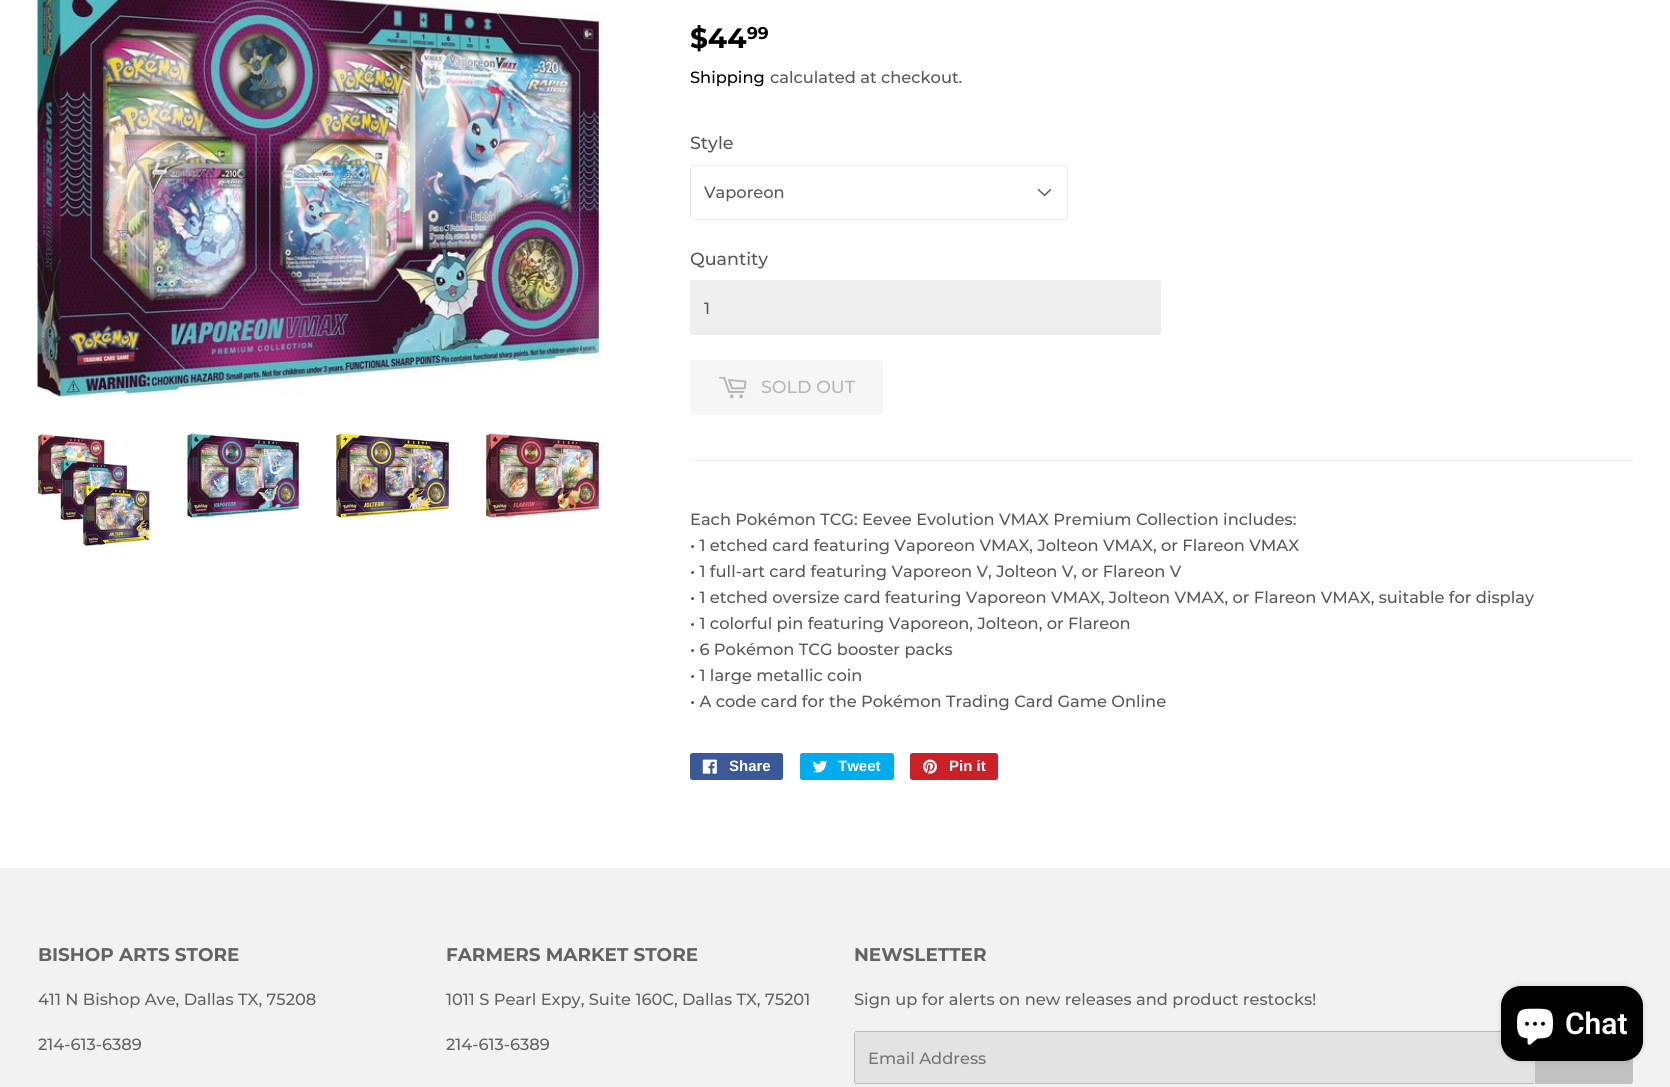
#include <cairo.h>
#include <math.h>
#include <stddef.h>

typedef struct { double x, y; const char *s; } line_t;
typedef struct { double x, y, w, h; unsigned color; } box_t;

static void ink(cairo_t *ctx, unsigned color) {
    cairo_set_source_rgb(ctx, (color >> 16) / 255.0, (color >> 8 & 255) / 255.0, (color & 255) / 255.0);
}

static void round_path(cairo_t *ctx, double x, double y, double w, double h, double r) {
    cairo_new_sub_path(ctx);
    cairo_arc(ctx, x + w - r, y + h - r, r, 0, M_PI / 2);
    cairo_arc(ctx, x + r, y + h - r, r, M_PI / 2, M_PI);
    cairo_arc(ctx, x + r, y + r, r, M_PI, 1.5 * M_PI);
    cairo_arc(ctx, x + w - r, y + r, r, 1.5 * M_PI, 2 * M_PI);
    cairo_close_path(ctx);
}

static void blur_box(cairo_t *ctx, double x, double y, double w, double h, double r, double blur, double alpha) {
    cairo_push_group_with_content(ctx, CAIRO_CONTENT_ALPHA);
    cairo_set_operator(ctx, CAIRO_OPERATOR_SOURCE);
    for (int i = 15; i >= -15 && fmin(w, h) + blur * i / 3 > 0; i -= 2) {
        double e = blur * i / 6;
        cairo_set_source_rgba(ctx, 0, 0, 0, alpha * erfc((i - 1) / 8.5) / 2);
        round_path(ctx, x - e, y - e, w + 2 * e, h + 2 * e, fmax(0, fmin(r + e + blur * .6, fmin(w, h) / 2 + e)));
        cairo_fill(ctx);
    }
    cairo_pattern_t *soft = cairo_pop_group(ctx);
    cairo_mask(ctx, soft);
    cairo_pattern_destroy(soft);
}

static void paste(cairo_t *ctx, const char *path, double x, double y, double w, double h) {
    cairo_surface_t *image = cairo_image_surface_create_from_png(path);
    cairo_save(ctx);
    cairo_set_source_surface(ctx, image, x, y);
    cairo_rectangle(ctx, x, y, w, h);
    cairo_fill(ctx);
    cairo_restore(ctx);
    cairo_surface_destroy(image);
}

int main(void) {
    cairo_surface_t *surface = cairo_image_surface_create(CAIRO_FORMAT_RGB24, 1670, 1087);
    cairo_t *ctx = cairo_create(surface);
    cairo_font_options_t *options = cairo_font_options_create();
    cairo_font_options_set_hint_metrics(options, CAIRO_HINT_METRICS_OFF);
    cairo_font_options_set_hint_style(options, CAIRO_HINT_STYLE_NONE);
    cairo_set_font_options(ctx, options);
    cairo_set_miter_limit(ctx, 4);
    ink(ctx, 0xFFFFFF);
    cairo_paint(ctx);
    paste(ctx, "media/1.png", 37, 0, 562, 397);
    paste(ctx, "media/2.png", 37, 434, 113, 112);
    paste(ctx, "media/3.png", 187, 433, 112, 85);
    paste(ctx, "media/4.png", 336, 433, 113, 85);
    paste(ctx, "media/5.png", 486, 433, 113, 85);
    cairo_select_font_face(ctx, "Montserrat", CAIRO_FONT_SLANT_NORMAL, CAIRO_FONT_WEIGHT_BOLD);
    cairo_set_font_size(ctx, 28);
    ink(ctx, 0x000000);
    cairo_move_to(ctx, 690, 48);
    cairo_show_text(ctx, "$44");
    cairo_set_font_size(ctx, 17);
    cairo_move_to(ctx, 747, 39);
    cairo_show_text(ctx, "99");
    cairo_select_font_face(ctx, "Montserrat Medium", CAIRO_FONT_SLANT_NORMAL, CAIRO_FONT_WEIGHT_NORMAL);
    cairo_set_font_size(ctx, 16.25);
    cairo_move_to(ctx, 690, 83);
    cairo_show_text(ctx, "Shipping");
    ink(ctx, 0x585858);
    cairo_move_to(ctx, 770, 83);
    cairo_show_text(ctx, "calculated at checkout.");
    cairo_set_font_size(ctx, 17.5);
    cairo_move_to(ctx, 690, 149);
    cairo_show_text(ctx, "Style");
    paste(ctx, "media/6.png", 1037, 188, 14, 9);
    round_path(ctx, 690.5, 165.5, 377, 54, 2);
    ink(ctx, 0xECECEC);
    cairo_set_line_width(ctx, 1);
    cairo_stroke(ctx);
    cairo_set_font_size(ctx, 16.25);
    ink(ctx, 0x585858);
    cairo_move_to(ctx, 704, 198);
    cairo_show_text(ctx, "Vaporeon");
    cairo_set_font_size(ctx, 17.5);
    cairo_move_to(ctx, 690, 265);
    cairo_show_text(ctx, "Quantity");
    ink(ctx, 0xEEEEEE);
    round_path(ctx, 690.5, 280.5, 470, 54, 2);
    cairo_fill_preserve(ctx);
    ink(ctx, 0xECECEC);
    cairo_stroke(ctx);
    cairo_set_font_size(ctx, 16.25);
    ink(ctx, 0x585858);
    cairo_move_to(ctx, 704, 314);
    cairo_show_text(ctx, "1");
    ink(ctx, 0xF6F6F6);
    round_path(ctx, 690, 360, 193, 55, 2.5);
    cairo_fill(ctx);
    paste(ctx, "media/7.png", 719, 376, 28, 23);
    cairo_set_font_size(ctx, 17.5);
    ink(ctx, 0xB6B6B6);
    cairo_move_to(ctx, 761, 393);
    cairo_show_text(ctx, "SOLD OUT");
    ink(ctx, 0xECECEC);
    cairo_rectangle(ctx, 690, 460, 943, 1);
    cairo_fill(ctx);
    cairo_set_font_size(ctx, 16.25);
    ink(ctx, 0x585858);
    {
        static const line_t items[] = {
            {690, 525, "Each Pokémon TCG: Eevee Evolution VMAX Premium Collection includes:"},
            {690, 551, "• 1 etched card featuring Vaporeon VMAX, Jolteon VMAX, or Flareon VMAX"},
            {690, 577, "• 1 full-art card featuring Vaporeon V, Jolteon V, or Flareon V"},
            {690, 603, "• 1 etched oversize card featuring Vaporeon VMAX, Jolteon VMAX, or Flareon VMAX, suitable for display"},
            {690, 629, "• 1 colorful pin featuring Vaporeon, Jolteon, or Flareon"},
            {690, 655, "• 6 Pokémon TCG booster packs"},
            {690, 681, "• 1 large metallic coin"},
            {690, 707, "• A code card for the Pokémon Trading Card Game Online"},
        };
        for (size_t i = 0; i < sizeof items / sizeof *items; i++) {
            cairo_move_to(ctx, items[i].x, items[i].y);
            cairo_show_text(ctx, items[i].s);
        }
    }
    ink(ctx, 0x3B5998);
    round_path(ctx, 690, 753, 93, 27, 2.5);
    cairo_fill(ctx);
    paste(ctx, "media/8.png", 702, 759, 15, 15);
    cairo_select_font_face(ctx, "Liberation Sans", CAIRO_FONT_SLANT_NORMAL, CAIRO_FONT_WEIGHT_BOLD);
    cairo_set_font_size(ctx, 15);
    ink(ctx, 0xFFFFFF);
    cairo_move_to(ctx, 729, 771);
    cairo_show_text(ctx, "Share");
    ink(ctx, 0x00ACED);
    round_path(ctx, 800, 753, 94, 27, 2.5);
    cairo_fill(ctx);
    paste(ctx, "media/9.png", 813, 760, 14, 13);
    ink(ctx, 0xFFFFFF);
    cairo_move_to(ctx, 838, 771);
    cairo_show_text(ctx, "Tweet");
    ink(ctx, 0xCB2027);
    round_path(ctx, 910, 753, 88, 27, 2.5);
    cairo_fill(ctx);
    paste(ctx, "media/10.png", 922, 759, 15, 15);
    ink(ctx, 0xFFFFFF);
    cairo_move_to(ctx, 949, 771);
    cairo_show_text(ctx, "Pin it");
    ink(ctx, 0xF2F2F2);
    cairo_rectangle(ctx, 0, 868, 1670, 219);
    cairo_fill(ctx);
    cairo_select_font_face(ctx, "Montserrat", CAIRO_FONT_SLANT_NORMAL, CAIRO_FONT_WEIGHT_BOLD);
    cairo_set_font_size(ctx, 18.4);
    ink(ctx, 0x636363);
    cairo_move_to(ctx, 38, 961);
    cairo_show_text(ctx, "BISHOP ARTS STORE");
    cairo_select_font_face(ctx, "Montserrat Medium", CAIRO_FONT_SLANT_NORMAL, CAIRO_FONT_WEIGHT_NORMAL);
    cairo_set_font_size(ctx, 16.25);
    cairo_move_to(ctx, 38, 1005);
    cairo_show_text(ctx, "411 N Bishop Ave, Dallas TX, 75208");
    cairo_move_to(ctx, 38, 1050);
    cairo_show_text(ctx, "214-613-6389");
    cairo_select_font_face(ctx, "Montserrat", CAIRO_FONT_SLANT_NORMAL, CAIRO_FONT_WEIGHT_BOLD);
    cairo_set_font_size(ctx, 18.4);
    cairo_move_to(ctx, 446, 961);
    cairo_show_text(ctx, "FARMERS MARKET STORE");
    cairo_select_font_face(ctx, "Montserrat Medium", CAIRO_FONT_SLANT_NORMAL, CAIRO_FONT_WEIGHT_NORMAL);
    cairo_set_font_size(ctx, 16.25);
    cairo_move_to(ctx, 446, 1005);
    cairo_show_text(ctx, "1011 S Pearl Expy, Suite 160C, Dallas TX, 75201");
    cairo_move_to(ctx, 446, 1050);
    cairo_show_text(ctx, "214-613-6389");
    cairo_select_font_face(ctx, "Montserrat", CAIRO_FONT_SLANT_NORMAL, CAIRO_FONT_WEIGHT_BOLD);
    cairo_set_font_size(ctx, 18.4);
    cairo_move_to(ctx, 854, 961);
    cairo_show_text(ctx, "NEWSLETTER");
    cairo_select_font_face(ctx, "Montserrat Medium", CAIRO_FONT_SLANT_NORMAL, CAIRO_FONT_WEIGHT_NORMAL);
    cairo_set_font_size(ctx, 16.25);
    cairo_move_to(ctx, 854, 1005);
    cairo_show_text(ctx, "Sign up for alerts on new releases and product restocks!");
    ink(ctx, 0xE3E3E3);
    round_path(ctx, 854, 1031, 681, 53, 2.5);
    cairo_fill(ctx);
    {
        static const box_t items[] = {
            {855, 1031, 646, 1, 0xB9B9B9},
            {855, 1083, 679, 1, 0xB9B9B9},
            {854, 1033, 1, 50, 0xB9B9B9},
        };
        for (size_t i = 0; i < sizeof items / sizeof *items; i++) {
            ink(ctx, items[i].color);
            cairo_rectangle(ctx, items[i].x, items[i].y, items[i].w, items[i].h);
            cairo_fill(ctx);
        }
    }
    ink(ctx, 0x757575);
    cairo_move_to(ctx, 868, 1064);
    cairo_show_text(ctx, "Email Address");
    ink(ctx, 0xC1C1C1);
    cairo_new_path(ctx);
    cairo_move_to(ctx, 1535, 1031);
    cairo_line_to(ctx, 1630.5, 1031);
    cairo_curve_to(ctx, 1632, 1031, 1633, 1032, 1633, 1033.5);
    cairo_line_to(ctx, 1633, 1081.5);
    cairo_curve_to(ctx, 1633, 1083, 1632, 1084, 1630.5, 1084);
    cairo_line_to(ctx, 1535, 1084);
    cairo_close_path(ctx);
    cairo_fill(ctx);
    ink(ctx, 0x000000);
    blur_box(ctx, 1501, 986, 142, 75, 20, 3, 0.15);
    ink(ctx, 0x000000);
    round_path(ctx, 1501, 986, 142, 75, 20);
    cairo_fill(ctx);
    paste(ctx, "media/11.png", 1517, 1008, 36, 37);
    cairo_select_font_face(ctx, "Roboto SemiBold", CAIRO_FONT_SLANT_NORMAL, CAIRO_FONT_WEIGHT_NORMAL);
    cairo_set_font_size(ctx, 30);
    ink(ctx, 0xFFFFFF);
    cairo_move_to(ctx, 1565, 1034);
    cairo_show_text(ctx, "Chat");
    cairo_surface_write_to_png(surface, "image.png");
    cairo_font_options_destroy(options);
    cairo_destroy(ctx);
    cairo_surface_destroy(surface);
    return 0;
}
